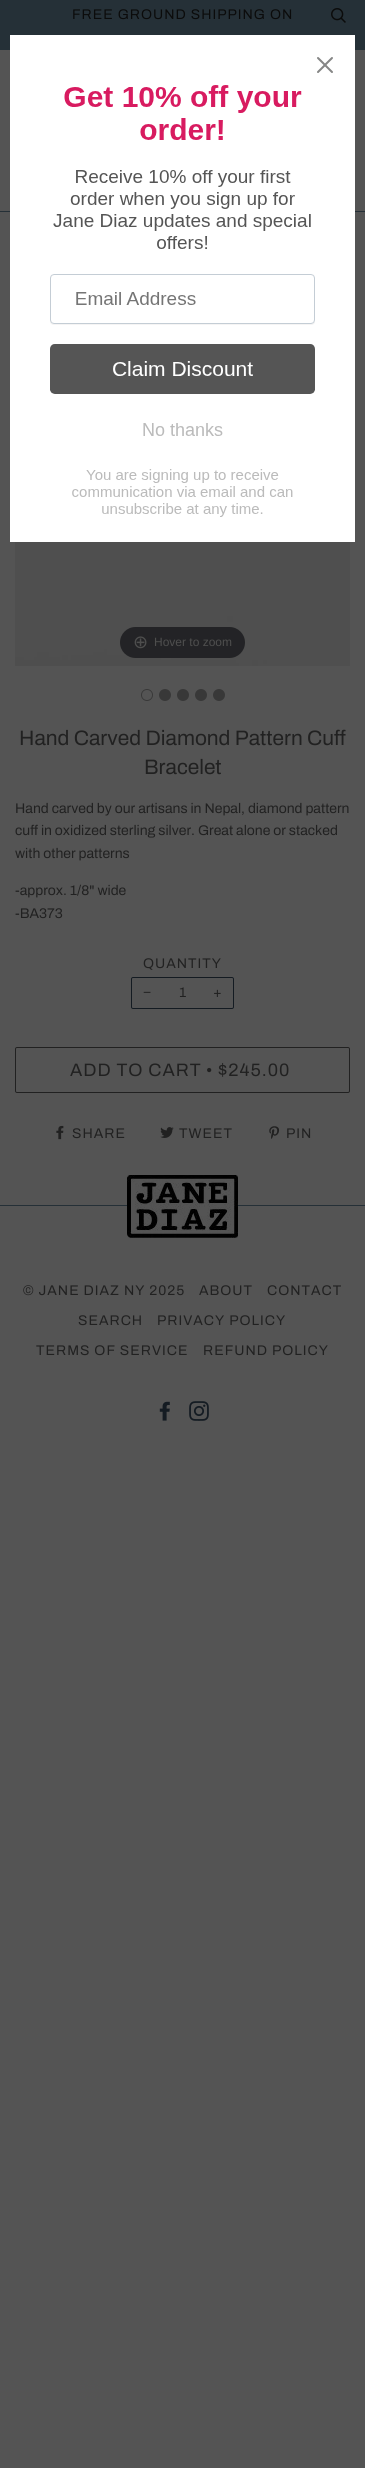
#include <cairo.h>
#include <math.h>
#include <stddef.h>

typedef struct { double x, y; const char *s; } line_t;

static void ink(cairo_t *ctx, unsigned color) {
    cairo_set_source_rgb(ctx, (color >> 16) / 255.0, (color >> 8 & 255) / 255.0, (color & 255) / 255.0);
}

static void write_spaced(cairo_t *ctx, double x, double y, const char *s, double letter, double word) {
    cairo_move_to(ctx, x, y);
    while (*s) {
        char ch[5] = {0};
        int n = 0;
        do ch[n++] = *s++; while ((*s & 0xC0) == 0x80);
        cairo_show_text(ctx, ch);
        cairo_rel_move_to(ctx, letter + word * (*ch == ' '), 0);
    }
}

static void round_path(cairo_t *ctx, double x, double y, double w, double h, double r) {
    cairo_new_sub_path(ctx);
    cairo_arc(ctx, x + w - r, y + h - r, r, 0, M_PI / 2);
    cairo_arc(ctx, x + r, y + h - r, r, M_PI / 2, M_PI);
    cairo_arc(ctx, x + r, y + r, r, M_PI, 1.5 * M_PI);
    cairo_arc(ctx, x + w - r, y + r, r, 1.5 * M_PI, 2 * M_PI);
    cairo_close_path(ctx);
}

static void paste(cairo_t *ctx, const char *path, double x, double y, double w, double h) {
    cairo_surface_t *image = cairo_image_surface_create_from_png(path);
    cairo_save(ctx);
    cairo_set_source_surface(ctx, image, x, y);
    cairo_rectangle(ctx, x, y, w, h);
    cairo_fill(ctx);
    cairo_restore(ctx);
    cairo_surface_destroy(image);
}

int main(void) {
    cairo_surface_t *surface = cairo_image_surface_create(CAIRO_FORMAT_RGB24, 365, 2468);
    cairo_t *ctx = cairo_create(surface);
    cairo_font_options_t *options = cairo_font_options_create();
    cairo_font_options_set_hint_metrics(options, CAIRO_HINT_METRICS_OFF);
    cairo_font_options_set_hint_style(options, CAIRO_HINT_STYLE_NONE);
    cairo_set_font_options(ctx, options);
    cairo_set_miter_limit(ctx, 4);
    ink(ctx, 0xFFFFFF);
    cairo_paint(ctx);
    ink(ctx, 0x7093A7);
    cairo_rectangle(ctx, 0, 0, 365, 50);
    cairo_fill(ctx);
    cairo_select_font_face(ctx, "Archivo", CAIRO_FONT_SLANT_NORMAL, CAIRO_FONT_WEIGHT_NORMAL);
    cairo_set_font_size(ctx, 14);
    ink(ctx, 0x222222);
    write_spaced(ctx, 72, 19, "FREE GROUND SHIPPING ON", 1, 0);
    paste(ctx, "media/2.png", 331, 8, 15, 15);
    ink(ctx, 0x7093A7);
    cairo_rectangle(ctx, 0, 211, 365, 1);
    cairo_fill(ctx);
    paste(ctx, "media/3.png", 15, 542, 335, 124);
    ink(ctx, 0x6A6B72);
    round_path(ctx, 120, 627, 125, 31, 15.5);
    cairo_fill(ctx);
    cairo_select_font_face(ctx, "DejaVu Sans", CAIRO_FONT_SLANT_NORMAL, CAIRO_FONT_WEIGHT_NORMAL);
    cairo_set_font_size(ctx, 18);
    ink(ctx, 0xEEEEEE);
    cairo_move_to(ctx, 133, 648);
    cairo_show_text(ctx, "⊕");
    cairo_select_font_face(ctx, "Liberation Sans", CAIRO_FONT_SLANT_NORMAL, CAIRO_FONT_WEIGHT_NORMAL);
    cairo_set_font_size(ctx, 12);
    cairo_move_to(ctx, 154, 646);
    cairo_show_text(ctx, "Hover to zoom");
    ink(ctx, 0xAAAAAA);
    cairo_new_path(ctx);
    cairo_arc(ctx, 147, 695, 6, 0, 2 * M_PI);
    cairo_fill(ctx);
    ink(ctx, 0xFFFFFF);
    cairo_arc(ctx, 147, 695, 5, 0, 2 * M_PI);
    cairo_fill(ctx);
    ink(ctx, 0xAAAAAA);
    cairo_arc(ctx, 165, 695, 6, 0, 2 * M_PI);
    cairo_fill(ctx);
    cairo_arc(ctx, 183, 695, 6, 0, 2 * M_PI);
    cairo_fill(ctx);
    cairo_arc(ctx, 201, 695, 6, 0, 2 * M_PI);
    cairo_fill(ctx);
    cairo_arc(ctx, 219, 695, 6, 0, 2 * M_PI);
    cairo_fill(ctx);
    cairo_select_font_face(ctx, "Archivo", CAIRO_FONT_SLANT_NORMAL, CAIRO_FONT_WEIGHT_NORMAL);
    cairo_set_font_size(ctx, 20.9);
    ink(ctx, 0x656565);
    cairo_move_to(ctx, 19, 745);
    cairo_show_text(ctx, "Hand Carved Diamond Pattern Cuff");
    cairo_move_to(ctx, 144, 774);
    cairo_show_text(ctx, "Bracelet");
    cairo_set_font_size(ctx, 14);
    {
        static const line_t items[] = {
            {15, 813, "Hand carved by our artisans in Nepal, diamond pattern"},
            {15, 835, "cuff in oxidized sterling silver. Great alone or stacked"},
            {15, 858, "with other patterns"},
            {15, 895, "-approx. 1/8\" wide"},
            {15, 918, "-BA373"},
        };
        for (size_t i = 0; i < sizeof items / sizeof *items; i++) {
            cairo_move_to(ctx, items[i].x, items[i].y);
            cairo_show_text(ctx, items[i].s);
        }
    }
    write_spaced(ctx, 143, 968, "QUANTITY", 1, 0);
    round_path(ctx, 131.5, 977.5, 102, 31, 1.5);
    ink(ctx, 0x3C5268);
    cairo_set_line_width(ctx, 1);
    cairo_stroke(ctx);
    cairo_select_font_face(ctx, "Liberation Sans", CAIRO_FONT_SLANT_NORMAL, CAIRO_FONT_WEIGHT_NORMAL);
    ink(ctx, 0x656565);
    cairo_move_to(ctx, 143, 997);
    cairo_show_text(ctx, "−");
    cairo_select_font_face(ctx, "Archivo", CAIRO_FONT_SLANT_NORMAL, CAIRO_FONT_WEIGHT_NORMAL);
    cairo_move_to(ctx, 179, 997);
    cairo_show_text(ctx, "1");
    cairo_move_to(ctx, 213, 997);
    cairo_show_text(ctx, "+");
    round_path(ctx, 15.5, 1047.5, 334, 45, 1.5);
    cairo_stroke(ctx);
    cairo_set_font_size(ctx, 18);
    write_spaced(ctx, 70, 1076, "ADD TO CART", 1, 0);
    cairo_select_font_face(ctx, "Liberation Serif", CAIRO_FONT_SLANT_NORMAL, CAIRO_FONT_WEIGHT_NORMAL);
    write_spaced(ctx, 206, 1076, "•", 1, 0);
    cairo_select_font_face(ctx, "Archivo", CAIRO_FONT_SLANT_NORMAL, CAIRO_FONT_WEIGHT_NORMAL);
    write_spaced(ctx, 218, 1076, "$245.00", 1, 0);
    paste(ctx, "media/4.png", 56, 1125, 8, 15);
    cairo_set_font_size(ctx, 14);
    write_spaced(ctx, 72, 1138, "SHARE", 1, 0);
    paste(ctx, "media/5.png", 160, 1127, 14, 11);
    write_spaced(ctx, 179, 1138, "TWEET", 1, 0);
    paste(ctx, "media/6.png", 269, 1126, 11, 13);
    write_spaced(ctx, 286, 1138, "PIN", 1, 0);
    ink(ctx, 0x7093A7);
    cairo_rectangle(ctx, 0, 1205, 365, 1);
    cairo_fill(ctx);
    paste(ctx, "media/7.png", 127, 1175, 111, 63);
    ink(ctx, 0x656565);
    {
        static const line_t items[] = {
            {23, 1295, "© JANE DIAZ NY 2025"},
            {199, 1295, "ABOUT"},
            {267, 1295, "CONTACT"},
            {78, 1325, "SEARCH"},
            {157, 1325, "PRIVACY POLICY"},
            {36, 1355, "TERMS OF SERVICE"},
            {203, 1355, "REFUND POLICY"},
        };
        for (size_t i = 0; i < sizeof items / sizeof *items; i++) {
            write_spaced(ctx, items[i].x, items[i].y, items[i].s, 1, 0);
        }
    }
    paste(ctx, "media/8.png", 159, 1401, 11, 20);
    paste(ctx, "media/9.png", 189, 1401, 20, 20);
    paste(ctx, "media/1.png", 0, 0, 365, 2468);
    cairo_surface_write_to_png(surface, "image.png");
    cairo_font_options_destroy(options);
    cairo_destroy(ctx);
    cairo_surface_destroy(surface);
    return 0;
}
